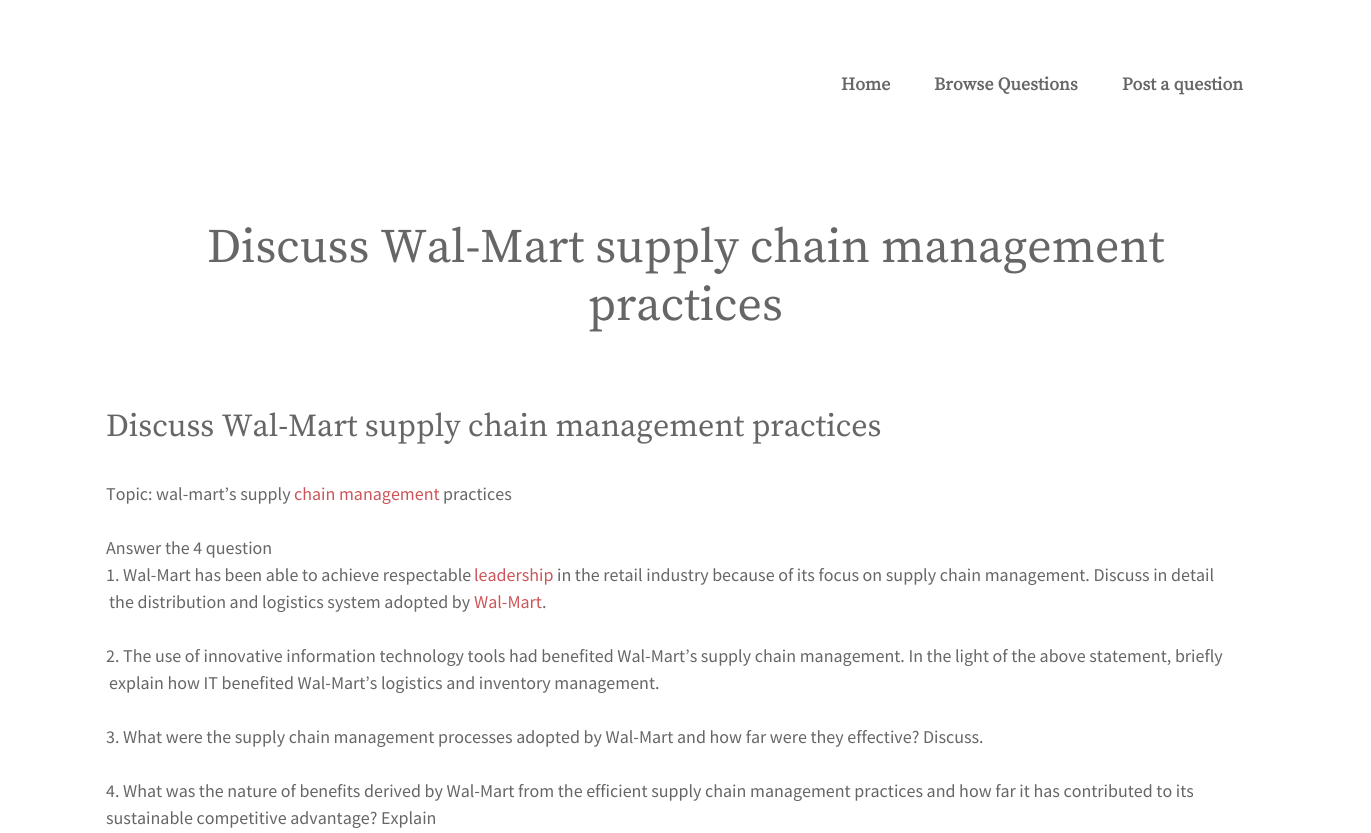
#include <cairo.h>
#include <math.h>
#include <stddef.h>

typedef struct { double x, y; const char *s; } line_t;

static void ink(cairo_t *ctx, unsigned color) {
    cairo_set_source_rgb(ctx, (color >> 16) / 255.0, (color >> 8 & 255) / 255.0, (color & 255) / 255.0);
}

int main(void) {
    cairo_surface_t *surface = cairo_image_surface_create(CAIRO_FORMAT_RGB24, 1371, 833);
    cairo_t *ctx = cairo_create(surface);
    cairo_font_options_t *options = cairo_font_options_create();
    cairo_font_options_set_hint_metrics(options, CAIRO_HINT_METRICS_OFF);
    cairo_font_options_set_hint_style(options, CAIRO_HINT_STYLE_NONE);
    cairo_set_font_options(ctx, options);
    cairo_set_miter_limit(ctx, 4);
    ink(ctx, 0xFFFFFF);
    cairo_paint(ctx);
    cairo_select_font_face(ctx, "Source Serif Pro", CAIRO_FONT_SLANT_NORMAL, CAIRO_FONT_WEIGHT_BOLD);
    cairo_set_font_size(ctx, 18);
    ink(ctx, 0x666666);
    {
        static const line_t items[] = {
            {841, 90, "Home"},
            {934, 90, "Browse Questions"},
            {1122, 90, "Post a question"},
        };
        for (size_t i = 0; i < sizeof items / sizeof *items; i++) {
            cairo_move_to(ctx, items[i].x, items[i].y);
            cairo_show_text(ctx, items[i].s);
        }
    }
    cairo_select_font_face(ctx, "Source Serif Pro", CAIRO_FONT_SLANT_NORMAL, CAIRO_FONT_WEIGHT_NORMAL);
    cairo_set_font_size(ctx, 48);
    cairo_move_to(ctx, 207, 262);
    cairo_show_text(ctx, "Discuss Wal-Mart supply chain management");
    cairo_move_to(ctx, 588, 320);
    cairo_show_text(ctx, "practices");
    cairo_set_font_size(ctx, 32);
    cairo_move_to(ctx, 106, 436);
    cairo_show_text(ctx, "Discuss Wal-Mart supply chain management practices");
    cairo_select_font_face(ctx, "Source Sans Pro", CAIRO_FONT_SLANT_NORMAL, CAIRO_FONT_WEIGHT_NORMAL);
    cairo_set_font_size(ctx, 18);
    cairo_move_to(ctx, 106, 500);
    cairo_show_text(ctx, "Topic: wal-mart’s supply");
    ink(ctx, 0xCC5559);
    cairo_move_to(ctx, 294, 500);
    cairo_show_text(ctx, "chain management");
    ink(ctx, 0x666666);
    {
        static const line_t items[] = {
            {443, 500, "practices"},
            {106, 554, "Answer the 4 question"},
            {106, 581, "1. Wal-Mart has been able to achieve respectable"},
        };
        for (size_t i = 0; i < sizeof items / sizeof *items; i++) {
            cairo_move_to(ctx, items[i].x, items[i].y);
            cairo_show_text(ctx, items[i].s);
        }
    }
    ink(ctx, 0xCC5559);
    cairo_move_to(ctx, 474, 581);
    cairo_show_text(ctx, "leadership");
    ink(ctx, 0x666666);
    cairo_move_to(ctx, 557, 581);
    cairo_show_text(ctx, "in the retail industry because of its focus on supply chain management. Discuss in detail");
    cairo_move_to(ctx, 109, 608);
    cairo_show_text(ctx, "the distribution and logistics system adopted by");
    ink(ctx, 0xCC5559);
    cairo_move_to(ctx, 474, 608);
    cairo_show_text(ctx, "Wal-Mart");
    ink(ctx, 0x666666);
    {
        static const line_t items[] = {
            {542, 608, "."},
            {106, 662, "2. The use of innovative information technology tools had benefited Wal-Mart’s supply chain management. In the light of the above statement, briefly"},
            {109, 689, "explain how IT benefited Wal-Mart’s logistics and inventory management."},
            {106, 743, "3. What were the supply chain management processes adopted by Wal-Mart and how far were they effective? Discuss."},
            {106, 797, "4. What was the nature of benefits derived by Wal-Mart from the efficient supply chain management practices and how far it has contributed to its"},
            {106, 824, "sustainable competitive advantage? Explain"},
        };
        for (size_t i = 0; i < sizeof items / sizeof *items; i++) {
            cairo_move_to(ctx, items[i].x, items[i].y);
            cairo_show_text(ctx, items[i].s);
        }
    }
    cairo_surface_write_to_png(surface, "image.png");
    cairo_font_options_destroy(options);
    cairo_destroy(ctx);
    cairo_surface_destroy(surface);
    return 0;
}
